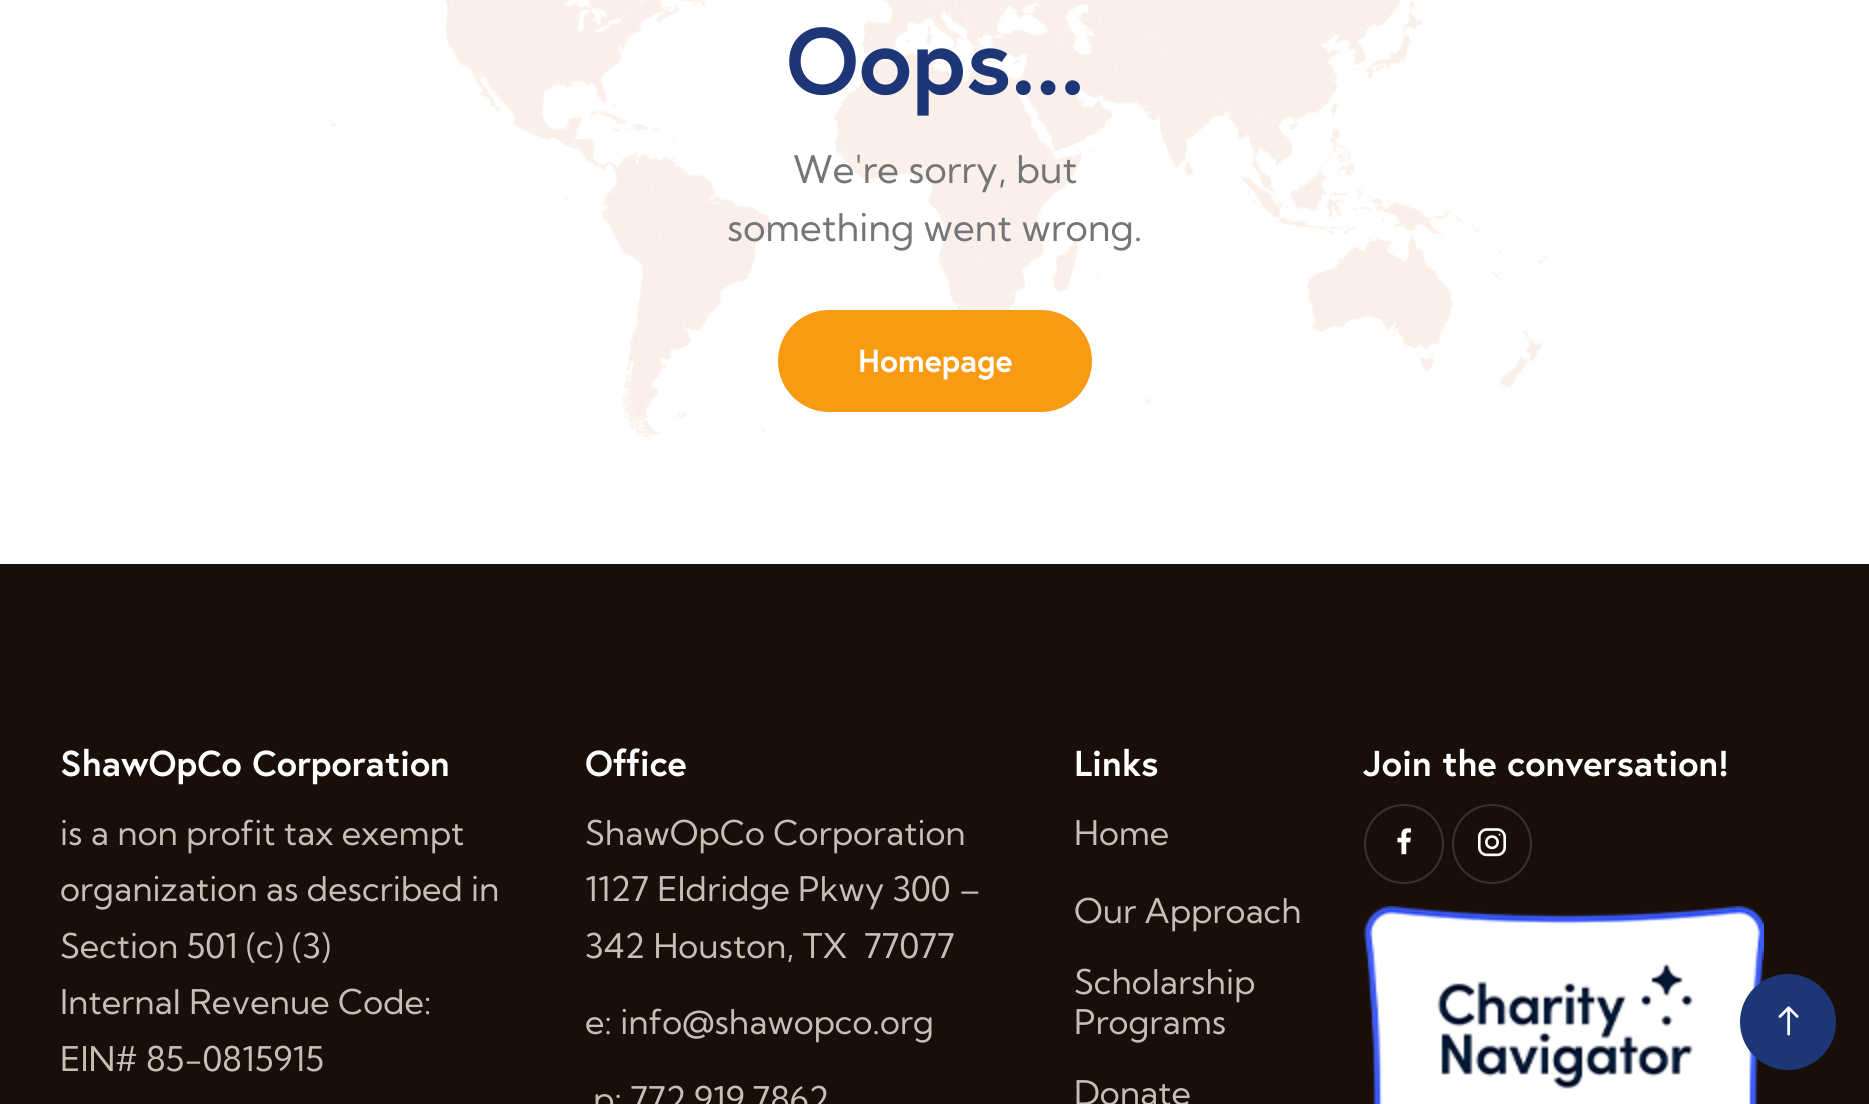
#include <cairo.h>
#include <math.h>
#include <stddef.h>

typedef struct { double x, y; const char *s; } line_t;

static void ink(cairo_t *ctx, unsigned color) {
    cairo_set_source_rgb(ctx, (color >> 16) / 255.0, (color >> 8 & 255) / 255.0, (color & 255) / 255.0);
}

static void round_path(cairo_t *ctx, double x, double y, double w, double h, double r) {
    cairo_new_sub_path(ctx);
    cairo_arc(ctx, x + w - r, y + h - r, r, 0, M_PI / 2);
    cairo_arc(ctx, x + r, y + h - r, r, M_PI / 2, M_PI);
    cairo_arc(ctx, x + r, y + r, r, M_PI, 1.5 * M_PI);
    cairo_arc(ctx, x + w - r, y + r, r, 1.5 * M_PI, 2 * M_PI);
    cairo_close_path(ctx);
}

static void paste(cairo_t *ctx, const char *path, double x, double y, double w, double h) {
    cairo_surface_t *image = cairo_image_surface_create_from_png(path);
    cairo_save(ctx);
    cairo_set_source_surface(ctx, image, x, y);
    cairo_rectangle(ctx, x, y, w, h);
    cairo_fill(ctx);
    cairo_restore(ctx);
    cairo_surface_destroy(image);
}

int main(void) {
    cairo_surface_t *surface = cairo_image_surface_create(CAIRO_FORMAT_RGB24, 1869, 1104);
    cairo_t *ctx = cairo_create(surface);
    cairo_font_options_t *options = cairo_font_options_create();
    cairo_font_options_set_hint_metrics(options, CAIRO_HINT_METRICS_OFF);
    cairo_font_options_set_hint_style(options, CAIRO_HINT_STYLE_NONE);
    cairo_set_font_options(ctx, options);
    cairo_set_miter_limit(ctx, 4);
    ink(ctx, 0xFFFFFF);
    cairo_paint(ctx);
    paste(ctx, "media/1.png", 318, 0, 1261, 440);
    cairo_select_font_face(ctx, "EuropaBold", CAIRO_FONT_SLANT_NORMAL, CAIRO_FONT_WEIGHT_BOLD);
    cairo_set_font_size(ctx, 94);
    ink(ctx, 0x1D3677);
    cairo_move_to(ctx, 786, 94);
    cairo_show_text(ctx, "Oops...");
    cairo_select_font_face(ctx, "Kumbh Sans", CAIRO_FONT_SLANT_NORMAL, CAIRO_FONT_WEIGHT_NORMAL);
    cairo_set_font_size(ctx, 38);
    ink(ctx, 0x747577);
    cairo_move_to(ctx, 793, 183);
    cairo_show_text(ctx, "We're sorry, but");
    cairo_move_to(ctx, 727, 241);
    cairo_show_text(ctx, "something went wrong.");
    ink(ctx, 0xF89B12);
    round_path(ctx, 778, 310, 314, 102, 51);
    cairo_fill(ctx);
    cairo_select_font_face(ctx, "EuropaBold", CAIRO_FONT_SLANT_NORMAL, CAIRO_FONT_WEIGHT_BOLD);
    cairo_set_font_size(ctx, 32);
    ink(ctx, 0xFFFFFF);
    cairo_move_to(ctx, 858, 372);
    cairo_show_text(ctx, "Homepage");
    ink(ctx, 0x190E08);
    cairo_rectangle(ctx, 0, 564, 1869, 540);
    cairo_fill(ctx);
    cairo_set_font_size(ctx, 36);
    ink(ctx, 0xFFFFFF);
    cairo_move_to(ctx, 60, 776);
    cairo_show_text(ctx, "ShawOpCo Corporation");
    cairo_select_font_face(ctx, "Kumbh Sans", CAIRO_FONT_SLANT_NORMAL, CAIRO_FONT_WEIGHT_NORMAL);
    cairo_set_font_size(ctx, 34);
    ink(ctx, 0xC9BDB6);
    {
        static const line_t items[] = {
            {60, 845, "is a non profit tax exempt"},
            {60, 901, "organization as described in"},
            {60, 958, "Section 501 (c) (3)"},
            {60, 1014, "Internal Revenue Code:"},
            {60, 1071, "EIN# 85-0815915"},
        };
        for (size_t i = 0; i < sizeof items / sizeof *items; i++) {
            cairo_move_to(ctx, items[i].x, items[i].y);
            cairo_show_text(ctx, items[i].s);
        }
    }
    cairo_select_font_face(ctx, "EuropaBold", CAIRO_FONT_SLANT_NORMAL, CAIRO_FONT_WEIGHT_BOLD);
    cairo_set_font_size(ctx, 36);
    ink(ctx, 0xFFFFFF);
    cairo_move_to(ctx, 585, 776);
    cairo_show_text(ctx, "Office");
    cairo_select_font_face(ctx, "Kumbh Sans", CAIRO_FONT_SLANT_NORMAL, CAIRO_FONT_WEIGHT_NORMAL);
    cairo_set_font_size(ctx, 34);
    ink(ctx, 0xC9BDB6);
    {
        static const line_t items[] = {
            {585, 845, "ShawOpCo Corporation"},
            {585, 901, "1127 Eldridge Pkwy 300 –"},
            {585, 958, "342 Houston, TX  77077"},
            {585, 1034, "e: info@shawopco.org"},
            {593, 1111, "p: 772.919.7862"},
        };
        for (size_t i = 0; i < sizeof items / sizeof *items; i++) {
            cairo_move_to(ctx, items[i].x, items[i].y);
            cairo_show_text(ctx, items[i].s);
        }
    }
    cairo_select_font_face(ctx, "EuropaBold", CAIRO_FONT_SLANT_NORMAL, CAIRO_FONT_WEIGHT_BOLD);
    cairo_set_font_size(ctx, 36);
    ink(ctx, 0xFFFFFF);
    cairo_move_to(ctx, 1074, 776);
    cairo_show_text(ctx, "Links");
    cairo_select_font_face(ctx, "Kumbh Sans", CAIRO_FONT_SLANT_NORMAL, CAIRO_FONT_WEIGHT_NORMAL);
    cairo_set_font_size(ctx, 34);
    ink(ctx, 0xC9BDB6);
    {
        static const line_t items[] = {
            {1074, 845, "Home"},
            {1074, 923, "Our Approach"},
            {1074, 994, "Scholarship"},
            {1074, 1034, "Programs"},
            {1074, 1105, "Donate"},
        };
        for (size_t i = 0; i < sizeof items / sizeof *items; i++) {
            cairo_move_to(ctx, items[i].x, items[i].y);
            cairo_show_text(ctx, items[i].s);
        }
    }
    cairo_select_font_face(ctx, "EuropaBold", CAIRO_FONT_SLANT_NORMAL, CAIRO_FONT_WEIGHT_BOLD);
    cairo_set_font_size(ctx, 36);
    ink(ctx, 0xFFFFFF);
    cairo_move_to(ctx, 1363, 776);
    cairo_show_text(ctx, "Join the conversation!");
    cairo_new_path(ctx);
    cairo_arc(ctx, 1404, 844, 39, 0, 2 * M_PI);
    ink(ctx, 0x3C322D);
    cairo_stroke(ctx);
    paste(ctx, "media/2.png", 1397, 828, 14, 27);
    cairo_arc(ctx, 1492, 844, 39, 0, 2 * M_PI);
    cairo_stroke(ctx);
    paste(ctx, "media/3.png", 1478, 828, 28, 29);
    paste(ctx, "media/4.png", 1364, 906, 400, 198);
    ink(ctx, 0x1D3677);
    cairo_arc(ctx, 1788, 1022, 48, 0, 2 * M_PI);
    cairo_fill(ctx);
    paste(ctx, "media/5.png", 1778, 1006, 21, 30);
    cairo_surface_write_to_png(surface, "image.png");
    cairo_font_options_destroy(options);
    cairo_destroy(ctx);
    cairo_surface_destroy(surface);
    return 0;
}
